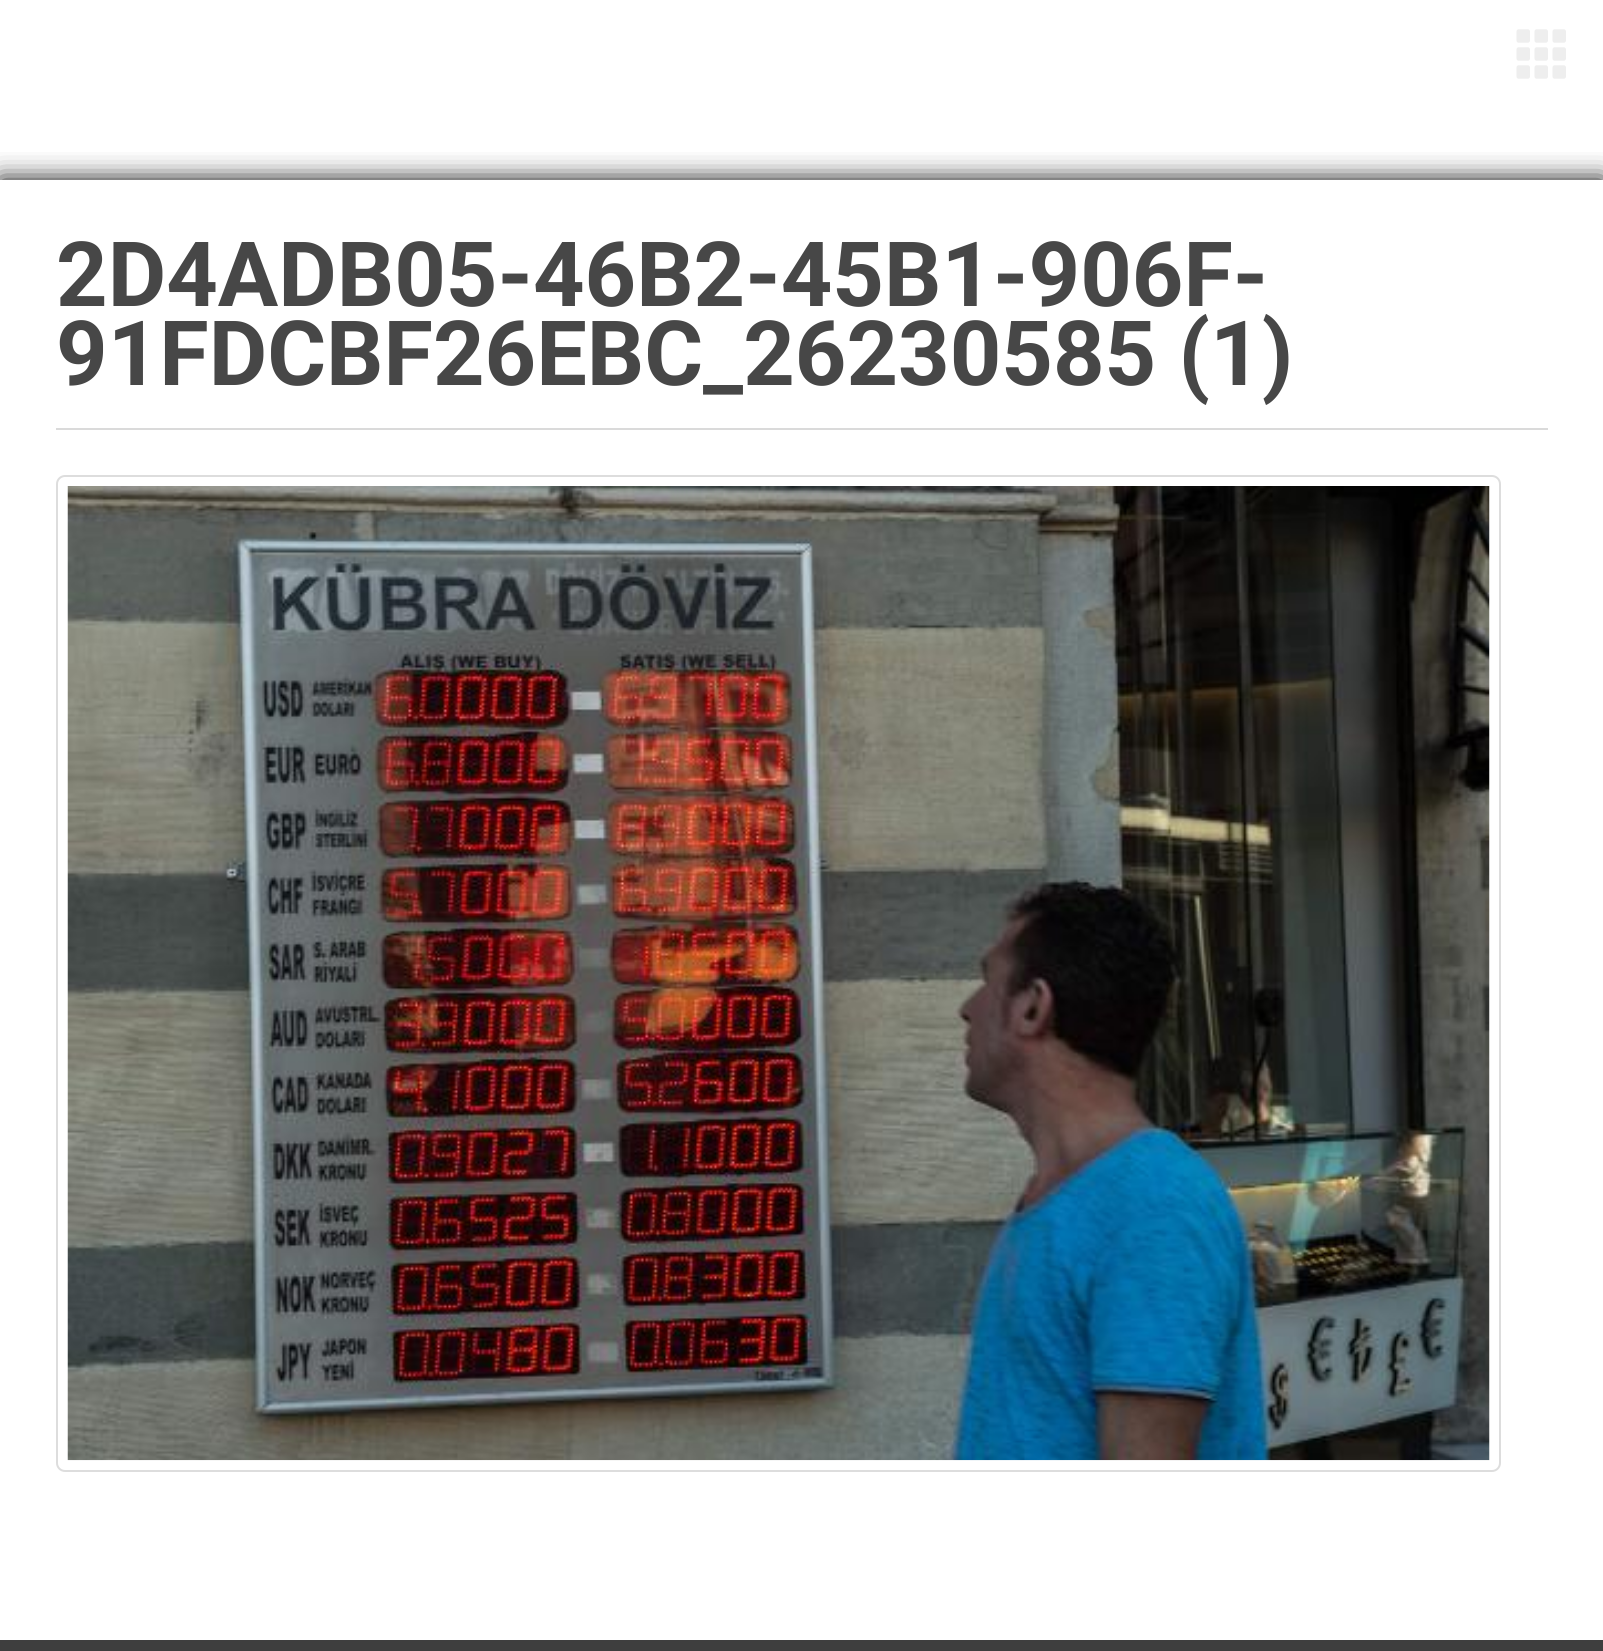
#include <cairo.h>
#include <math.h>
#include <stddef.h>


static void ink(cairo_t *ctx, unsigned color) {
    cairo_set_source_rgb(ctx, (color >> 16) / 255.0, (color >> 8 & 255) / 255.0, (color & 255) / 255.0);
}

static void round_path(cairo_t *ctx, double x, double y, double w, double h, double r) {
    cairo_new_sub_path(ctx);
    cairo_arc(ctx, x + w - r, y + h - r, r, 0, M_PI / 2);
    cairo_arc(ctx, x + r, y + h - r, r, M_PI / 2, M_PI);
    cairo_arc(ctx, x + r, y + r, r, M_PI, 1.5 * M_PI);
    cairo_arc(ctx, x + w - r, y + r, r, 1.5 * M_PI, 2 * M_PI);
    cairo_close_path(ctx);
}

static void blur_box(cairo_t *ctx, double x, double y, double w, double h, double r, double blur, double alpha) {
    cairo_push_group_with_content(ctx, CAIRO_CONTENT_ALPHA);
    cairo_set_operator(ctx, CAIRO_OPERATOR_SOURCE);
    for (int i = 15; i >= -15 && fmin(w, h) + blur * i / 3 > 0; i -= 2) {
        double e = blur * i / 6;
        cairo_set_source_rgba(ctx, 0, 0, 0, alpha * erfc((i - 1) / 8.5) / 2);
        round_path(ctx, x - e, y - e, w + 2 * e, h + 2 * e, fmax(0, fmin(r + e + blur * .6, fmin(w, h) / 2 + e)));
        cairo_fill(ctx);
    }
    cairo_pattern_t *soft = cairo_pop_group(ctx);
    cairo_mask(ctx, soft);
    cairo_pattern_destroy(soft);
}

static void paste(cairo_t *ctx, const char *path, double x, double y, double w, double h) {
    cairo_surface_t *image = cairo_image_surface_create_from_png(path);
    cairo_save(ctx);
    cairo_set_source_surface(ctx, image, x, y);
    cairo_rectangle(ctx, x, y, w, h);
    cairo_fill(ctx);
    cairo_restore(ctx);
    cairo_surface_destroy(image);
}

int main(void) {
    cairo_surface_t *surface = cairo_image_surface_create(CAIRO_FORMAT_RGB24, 1603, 1651);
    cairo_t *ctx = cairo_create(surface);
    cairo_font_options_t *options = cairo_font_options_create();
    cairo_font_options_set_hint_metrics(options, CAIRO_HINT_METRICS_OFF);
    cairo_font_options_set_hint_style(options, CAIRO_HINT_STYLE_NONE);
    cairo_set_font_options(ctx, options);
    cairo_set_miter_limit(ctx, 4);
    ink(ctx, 0xFFFFFF);
    cairo_paint(ctx);
    paste(ctx, "media/1.png", 1516, 29, 50, 50);
    cairo_save(ctx);
    cairo_rectangle(ctx, 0, 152, 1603, 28);
    cairo_clip(ctx);
    ink(ctx, 0x0A0A0A);
    blur_box(ctx, 0, 180, 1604, 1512, 0, 13.5, 1);
    cairo_restore(ctx);
    ink(ctx, 0xDADADA);
    cairo_rectangle(ctx, 56, 428, 1492, 2);
    cairo_fill(ctx);
    cairo_select_font_face(ctx, "Roboto", CAIRO_FONT_SLANT_NORMAL, CAIRO_FONT_WEIGHT_BOLD);
    cairo_set_font_size(ctx, 90);
    ink(ctx, 0x474747);
    cairo_move_to(ctx, 56, 306);
    cairo_show_text(ctx, "2D4ADB05-46B2-45B1-906F-");
    cairo_move_to(ctx, 56, 385);
    cairo_show_text(ctx, "91FDCBF26EBC_26230585 (1)");
    round_path(ctx, 57, 476, 1443, 995, 8);
    ink(ctx, 0xDDDDDD);
    cairo_stroke(ctx);
    paste(ctx, "media/2.png", 67, 486, 1423, 975);
    ink(ctx, 0x3E3E3E);
    cairo_rectangle(ctx, 0, 1640, 1603, 11);
    cairo_fill(ctx);
    cairo_surface_write_to_png(surface, "image.png");
    cairo_font_options_destroy(options);
    cairo_destroy(ctx);
    cairo_surface_destroy(surface);
    return 0;
}
